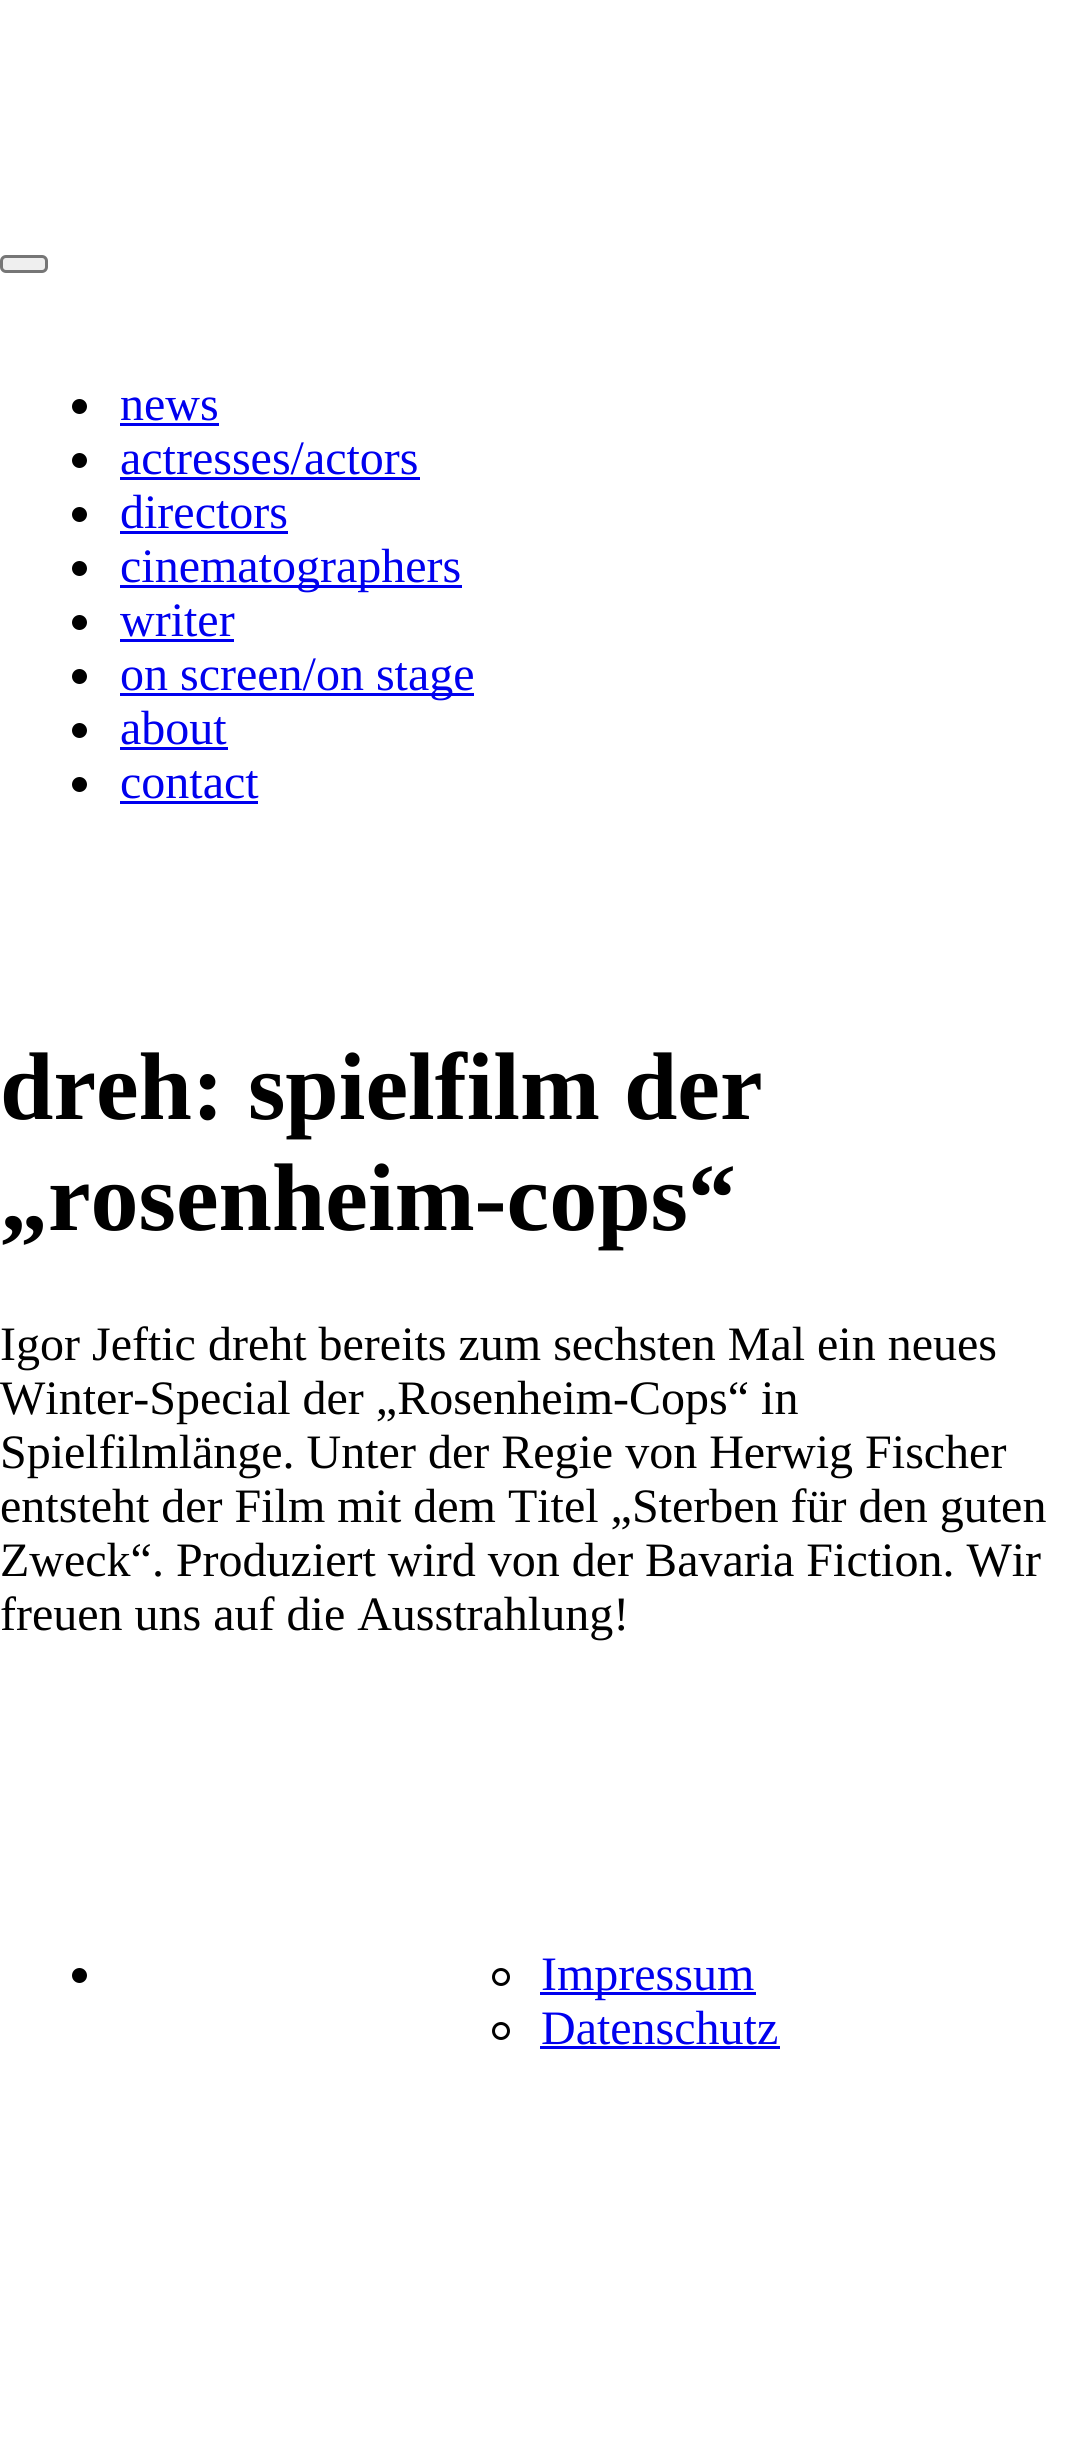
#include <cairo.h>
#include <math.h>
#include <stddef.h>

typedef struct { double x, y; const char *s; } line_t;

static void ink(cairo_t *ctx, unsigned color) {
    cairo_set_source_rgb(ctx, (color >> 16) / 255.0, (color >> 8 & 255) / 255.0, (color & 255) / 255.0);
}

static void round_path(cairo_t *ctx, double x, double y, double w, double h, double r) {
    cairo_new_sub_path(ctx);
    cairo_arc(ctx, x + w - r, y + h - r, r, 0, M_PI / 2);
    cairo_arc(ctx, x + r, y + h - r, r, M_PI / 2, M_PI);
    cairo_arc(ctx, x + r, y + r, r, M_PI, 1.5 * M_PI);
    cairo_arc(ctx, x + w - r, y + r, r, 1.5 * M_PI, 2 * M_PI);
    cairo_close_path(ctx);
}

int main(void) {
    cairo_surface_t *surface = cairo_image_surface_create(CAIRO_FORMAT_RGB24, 1080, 2438);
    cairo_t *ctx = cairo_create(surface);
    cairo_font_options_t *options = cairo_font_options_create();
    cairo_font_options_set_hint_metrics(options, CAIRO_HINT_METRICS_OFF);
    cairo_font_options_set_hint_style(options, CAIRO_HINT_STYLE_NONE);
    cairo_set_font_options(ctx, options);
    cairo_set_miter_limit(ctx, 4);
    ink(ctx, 0xFFFFFF);
    cairo_paint(ctx);
    ink(ctx, 0xEFEFEF);
    round_path(ctx, 1.5, 256.5, 45, 15, 4.5);
    cairo_fill_preserve(ctx);
    ink(ctx, 0x767676);
    cairo_set_line_width(ctx, 3);
    cairo_stroke(ctx);
    ink(ctx, 0x000000);
    cairo_arc(ctx, 79.5, 406.5, 7.5, 0, 2 * M_PI);
    cairo_fill(ctx);
    cairo_select_font_face(ctx, "Liberation Serif", CAIRO_FONT_SLANT_NORMAL, CAIRO_FONT_WEIGHT_NORMAL);
    cairo_set_font_size(ctx, 48);
    ink(ctx, 0x0000EE);
    cairo_move_to(ctx, 120, 420);
    cairo_show_text(ctx, "news");
    cairo_rectangle(ctx, 120, 423, 99, 3);
    cairo_fill(ctx);
    ink(ctx, 0x000000);
    cairo_arc(ctx, 79.5, 460.5, 7.5, 0, 2 * M_PI);
    cairo_fill(ctx);
    ink(ctx, 0x0000EE);
    cairo_move_to(ctx, 120, 474);
    cairo_show_text(ctx, "actresses/actors");
    cairo_rectangle(ctx, 120, 477, 300, 3);
    cairo_fill(ctx);
    ink(ctx, 0x000000);
    cairo_arc(ctx, 79.5, 514.5, 7.5, 0, 2 * M_PI);
    cairo_fill(ctx);
    ink(ctx, 0x0000EE);
    cairo_move_to(ctx, 120, 528);
    cairo_show_text(ctx, "directors");
    cairo_rectangle(ctx, 120, 531, 168, 3);
    cairo_fill(ctx);
    ink(ctx, 0x000000);
    cairo_arc(ctx, 79.5, 568.5, 7.5, 0, 2 * M_PI);
    cairo_fill(ctx);
    ink(ctx, 0x0000EE);
    cairo_rectangle(ctx, 120, 585, 342, 3);
    cairo_fill(ctx);
    cairo_move_to(ctx, 120, 582);
    cairo_show_text(ctx, "cinematographers");
    ink(ctx, 0x000000);
    cairo_new_path(ctx);
    cairo_arc(ctx, 79.5, 622.5, 7.5, 0, 2 * M_PI);
    cairo_fill(ctx);
    ink(ctx, 0x0000EE);
    cairo_move_to(ctx, 120, 636);
    cairo_show_text(ctx, "writer");
    cairo_rectangle(ctx, 120, 639, 114, 3);
    cairo_fill(ctx);
    ink(ctx, 0x000000);
    cairo_arc(ctx, 79.5, 676.5, 7.5, 0, 2 * M_PI);
    cairo_fill(ctx);
    ink(ctx, 0x0000EE);
    cairo_rectangle(ctx, 120, 693, 354, 3);
    cairo_fill(ctx);
    cairo_move_to(ctx, 120, 690);
    cairo_show_text(ctx, "on screen/on stage");
    ink(ctx, 0x000000);
    cairo_new_path(ctx);
    cairo_arc(ctx, 79.5, 730.5, 7.5, 0, 2 * M_PI);
    cairo_fill(ctx);
    ink(ctx, 0x0000EE);
    cairo_move_to(ctx, 120, 744);
    cairo_show_text(ctx, "about");
    cairo_rectangle(ctx, 120, 747, 108, 3);
    cairo_fill(ctx);
    ink(ctx, 0x000000);
    cairo_arc(ctx, 79.5, 784.5, 7.5, 0, 2 * M_PI);
    cairo_fill(ctx);
    ink(ctx, 0x0000EE);
    cairo_move_to(ctx, 120, 798);
    cairo_show_text(ctx, "contact");
    cairo_rectangle(ctx, 120, 801, 138, 3);
    cairo_fill(ctx);
    cairo_select_font_face(ctx, "Liberation Serif", CAIRO_FONT_SLANT_NORMAL, CAIRO_FONT_WEIGHT_BOLD);
    cairo_set_font_size(ctx, 96);
    ink(ctx, 0x000000);
    cairo_move_to(ctx, 0, 1119);
    cairo_show_text(ctx, "dreh: spielfilm der");
    cairo_move_to(ctx, 0, 1230);
    cairo_show_text(ctx, "„rosenheim-cops“");
    cairo_select_font_face(ctx, "Liberation Serif", CAIRO_FONT_SLANT_NORMAL, CAIRO_FONT_WEIGHT_NORMAL);
    cairo_set_font_size(ctx, 48);
    {
        static const line_t items[] = {
            {0, 1360, "Igor Jeftic dreht bereits zum sechsten Mal ein neues"},
            {0, 1414, "Winter-Special der „Rosenheim-Cops“ in"},
            {0, 1468, "Spielfilmlänge. Unter der Regie von Herwig Fischer"},
            {0, 1522, "entsteht der Film mit dem Titel „Sterben für den guten"},
            {0, 1576, "Zweck“. Produziert wird von der Bavaria Fiction. Wir"},
            {0, 1630, "freuen uns auf die Ausstrahlung!"},
        };
        for (size_t i = 0; i < sizeof items / sizeof *items; i++) {
            cairo_move_to(ctx, items[i].x, items[i].y);
            cairo_show_text(ctx, items[i].s);
        }
    }
    cairo_new_path(ctx);
    cairo_arc(ctx, 79.5, 1975.5, 7.5, 0, 2 * M_PI);
    cairo_fill(ctx);
    cairo_arc(ctx, 501, 1977, 7.5, 0, 2 * M_PI);
    cairo_stroke(ctx);
    ink(ctx, 0x0000EE);
    cairo_rectangle(ctx, 540, 1992, 216, 3);
    cairo_fill(ctx);
    cairo_move_to(ctx, 541, 1990);
    cairo_show_text(ctx, "Impressum");
    cairo_new_path(ctx);
    cairo_arc(ctx, 501, 2031, 7.5, 0, 2 * M_PI);
    ink(ctx, 0x000000);
    cairo_stroke(ctx);
    ink(ctx, 0x0000EE);
    cairo_move_to(ctx, 541, 2044);
    cairo_show_text(ctx, "Datenschutz");
    cairo_rectangle(ctx, 540, 2046, 240, 3);
    cairo_fill(ctx);
    cairo_surface_write_to_png(surface, "image.png");
    cairo_font_options_destroy(options);
    cairo_destroy(ctx);
    cairo_surface_destroy(surface);
    return 0;
}
